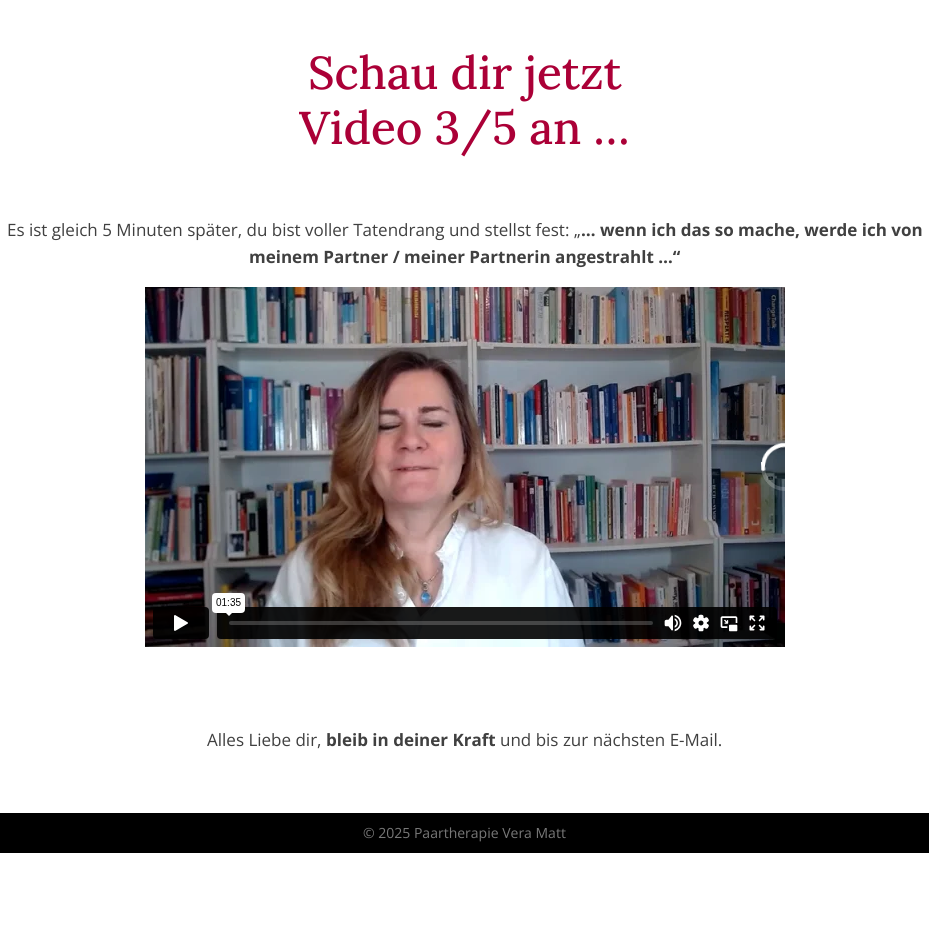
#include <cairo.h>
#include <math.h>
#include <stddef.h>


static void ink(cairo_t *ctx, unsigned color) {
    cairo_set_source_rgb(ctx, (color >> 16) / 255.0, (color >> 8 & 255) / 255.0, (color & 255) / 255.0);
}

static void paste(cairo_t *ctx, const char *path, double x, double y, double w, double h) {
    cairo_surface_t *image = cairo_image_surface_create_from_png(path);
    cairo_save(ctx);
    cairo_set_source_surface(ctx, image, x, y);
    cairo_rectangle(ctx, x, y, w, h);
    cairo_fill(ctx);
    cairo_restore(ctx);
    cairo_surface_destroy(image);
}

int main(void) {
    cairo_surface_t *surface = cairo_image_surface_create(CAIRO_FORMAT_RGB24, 929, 934);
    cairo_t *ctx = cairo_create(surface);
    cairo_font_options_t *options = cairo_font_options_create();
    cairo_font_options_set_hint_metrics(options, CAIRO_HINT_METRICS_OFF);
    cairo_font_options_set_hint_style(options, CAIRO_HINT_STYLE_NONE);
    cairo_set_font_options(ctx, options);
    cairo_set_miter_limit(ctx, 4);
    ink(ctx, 0xFFFFFF);
    cairo_paint(ctx);
    cairo_select_font_face(ctx, "Lora Medium", CAIRO_FONT_SLANT_NORMAL, CAIRO_FONT_WEIGHT_NORMAL);
    cairo_set_font_size(ctx, 46);
    ink(ctx, 0xAB0037);
    cairo_move_to(ctx, 308, 89);
    cairo_show_text(ctx, "Schau dir jetzt");
    cairo_move_to(ctx, 299, 144);
    cairo_show_text(ctx, "Video 3/5 an …");
    cairo_select_font_face(ctx, "Open Sans", CAIRO_FONT_SLANT_NORMAL, CAIRO_FONT_WEIGHT_NORMAL);
    cairo_set_font_size(ctx, 17);
    ink(ctx, 0x404040);
    cairo_move_to(ctx, 7, 236);
    cairo_show_text(ctx, "Es ist gleich 5 Minuten später, du bist voller Tatendrang und stellst fest: „");
    cairo_select_font_face(ctx, "Open Sans", CAIRO_FONT_SLANT_NORMAL, CAIRO_FONT_WEIGHT_BOLD);
    cairo_move_to(ctx, 581, 236);
    cairo_show_text(ctx, "… wenn ich das so mache, werde ich von");
    cairo_move_to(ctx, 249, 263);
    cairo_show_text(ctx, "meinem Partner / meiner Partnerin angestrahlt …“");
    paste(ctx, "media/1.png", 145, 287, 640, 360);
    cairo_select_font_face(ctx, "Open Sans", CAIRO_FONT_SLANT_NORMAL, CAIRO_FONT_WEIGHT_NORMAL);
    cairo_move_to(ctx, 207, 746);
    cairo_show_text(ctx, "Alles Liebe dir,");
    cairo_select_font_face(ctx, "Open Sans", CAIRO_FONT_SLANT_NORMAL, CAIRO_FONT_WEIGHT_BOLD);
    cairo_move_to(ctx, 326, 746);
    cairo_show_text(ctx, "bleib in deiner Kraft");
    cairo_select_font_face(ctx, "Open Sans", CAIRO_FONT_SLANT_NORMAL, CAIRO_FONT_WEIGHT_NORMAL);
    cairo_move_to(ctx, 500, 746);
    cairo_show_text(ctx, "und bis zur nächsten E-Mail.");
    ink(ctx, 0x000000);
    cairo_rectangle(ctx, 0, 813, 929, 40);
    cairo_fill(ctx);
    cairo_set_font_size(ctx, 14);
    ink(ctx, 0x787878);
    cairo_move_to(ctx, 363, 838);
    cairo_show_text(ctx, "© 2025 Paartherapie Vera Matt");
    cairo_surface_write_to_png(surface, "image.png");
    cairo_font_options_destroy(options);
    cairo_destroy(ctx);
    cairo_surface_destroy(surface);
    return 0;
}
